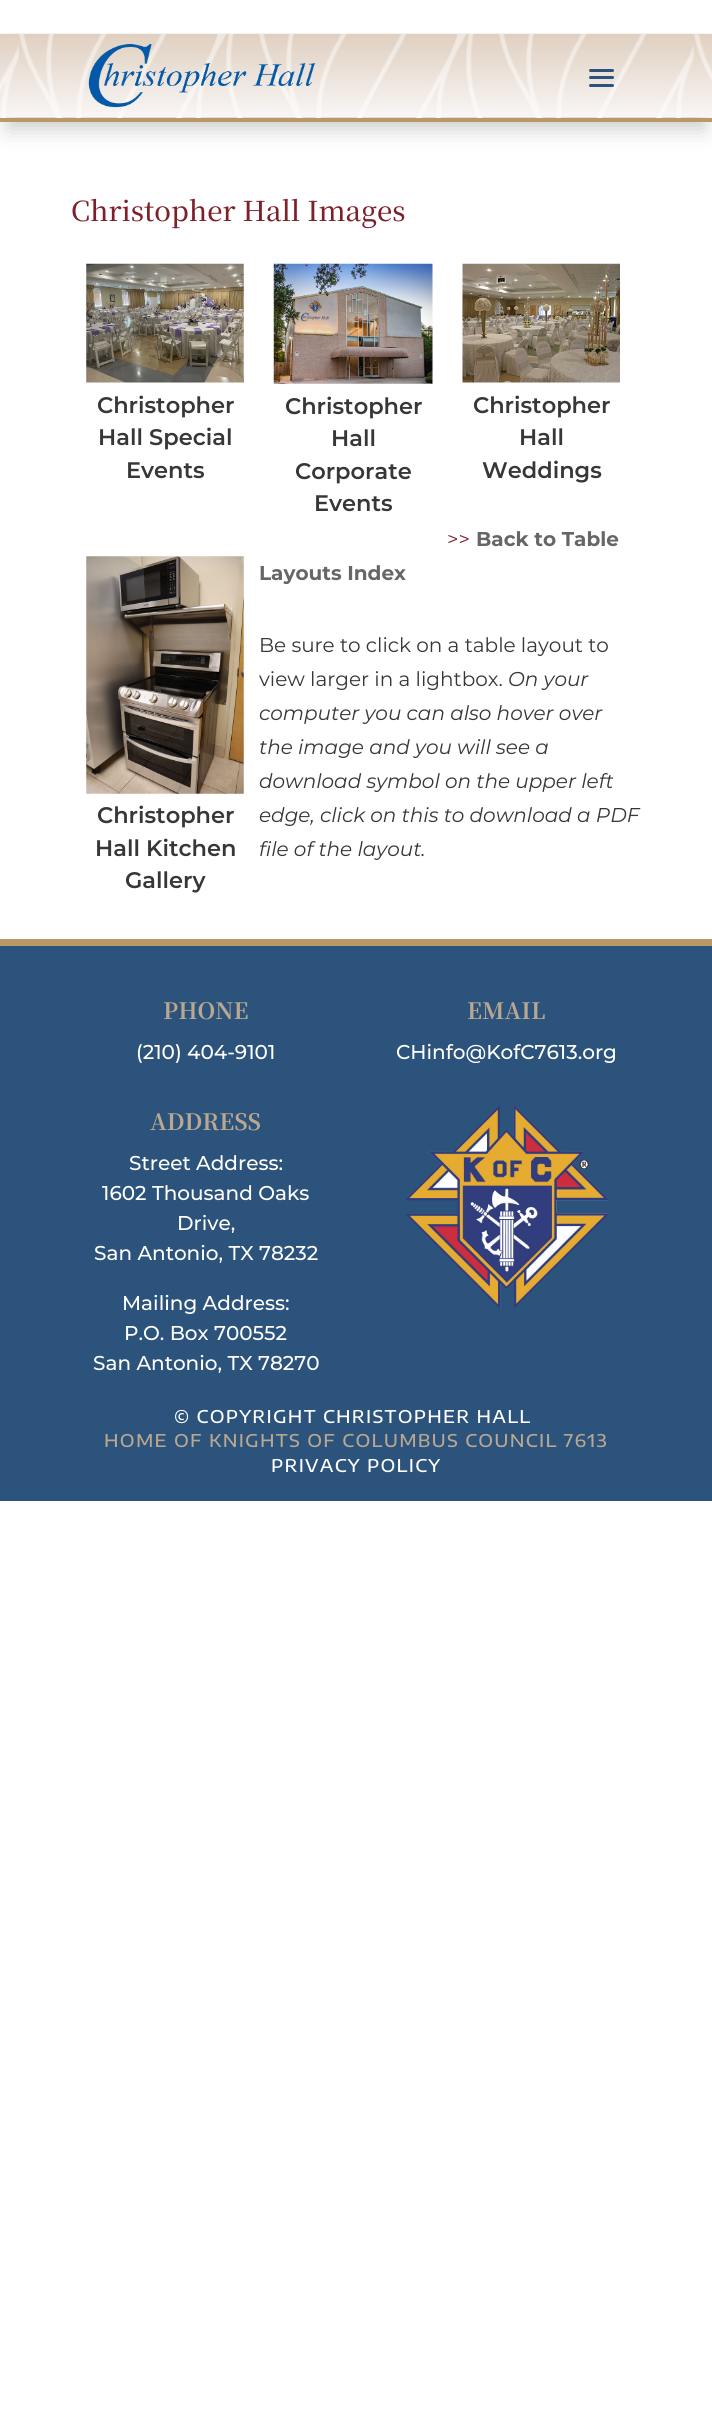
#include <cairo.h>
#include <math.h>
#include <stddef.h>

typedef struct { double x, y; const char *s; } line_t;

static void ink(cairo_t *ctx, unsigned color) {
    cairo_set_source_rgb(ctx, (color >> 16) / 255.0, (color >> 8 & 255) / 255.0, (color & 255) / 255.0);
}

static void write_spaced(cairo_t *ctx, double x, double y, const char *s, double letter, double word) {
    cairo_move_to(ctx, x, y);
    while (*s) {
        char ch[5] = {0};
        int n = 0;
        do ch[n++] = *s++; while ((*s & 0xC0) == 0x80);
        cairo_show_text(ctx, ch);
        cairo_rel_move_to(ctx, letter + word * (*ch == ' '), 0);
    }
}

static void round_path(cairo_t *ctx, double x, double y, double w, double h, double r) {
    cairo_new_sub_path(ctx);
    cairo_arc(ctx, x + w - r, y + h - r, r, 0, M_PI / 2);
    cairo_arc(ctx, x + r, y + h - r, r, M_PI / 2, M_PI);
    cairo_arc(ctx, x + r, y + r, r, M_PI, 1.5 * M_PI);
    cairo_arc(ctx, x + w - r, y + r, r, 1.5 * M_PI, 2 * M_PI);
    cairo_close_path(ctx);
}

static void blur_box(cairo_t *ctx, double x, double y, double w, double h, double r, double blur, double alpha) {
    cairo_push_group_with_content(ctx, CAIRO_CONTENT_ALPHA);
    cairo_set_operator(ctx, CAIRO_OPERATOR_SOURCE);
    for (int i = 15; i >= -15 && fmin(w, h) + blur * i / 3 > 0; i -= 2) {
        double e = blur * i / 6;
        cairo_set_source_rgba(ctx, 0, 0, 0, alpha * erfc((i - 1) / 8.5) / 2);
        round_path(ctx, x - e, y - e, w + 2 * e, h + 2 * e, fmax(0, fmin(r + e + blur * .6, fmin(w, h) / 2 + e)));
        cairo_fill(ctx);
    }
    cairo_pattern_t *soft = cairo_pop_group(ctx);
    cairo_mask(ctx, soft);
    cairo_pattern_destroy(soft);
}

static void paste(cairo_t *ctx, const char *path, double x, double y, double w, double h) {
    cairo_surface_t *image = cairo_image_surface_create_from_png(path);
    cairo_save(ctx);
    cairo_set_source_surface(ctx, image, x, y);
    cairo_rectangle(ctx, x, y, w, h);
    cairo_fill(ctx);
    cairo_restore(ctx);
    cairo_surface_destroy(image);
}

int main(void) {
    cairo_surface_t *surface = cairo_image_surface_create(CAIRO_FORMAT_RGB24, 712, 2414);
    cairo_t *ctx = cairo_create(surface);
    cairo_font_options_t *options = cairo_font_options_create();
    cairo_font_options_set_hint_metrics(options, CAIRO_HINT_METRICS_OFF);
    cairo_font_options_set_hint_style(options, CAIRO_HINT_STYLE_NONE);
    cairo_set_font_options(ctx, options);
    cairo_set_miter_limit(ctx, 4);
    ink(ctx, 0xFFFFFF);
    cairo_paint(ctx);
    ink(ctx, 0x000000);
    blur_box(ctx, 8, 56, 697, 73, 0, 11, 0.2);
    paste(ctx, "media/1.png", 0, 33, 712, 85);
    ink(ctx, 0xBB9868);
    cairo_rectangle(ctx, 0, 118, 712, 4);
    cairo_fill(ctx);
    paste(ctx, "media/2.png", 88, 44, 228, 64);
    ink(ctx, 0x2C537B);
    round_path(ctx, 589, 76, 25, 3, 1.5);
    cairo_fill(ctx);
    round_path(ctx, 589, 69, 25, 3, 1.5);
    cairo_fill(ctx);
    round_path(ctx, 589, 84, 25, 3, 1.5);
    cairo_fill(ctx);
    cairo_select_font_face(ctx, "Noto Serif TC Medium", CAIRO_FONT_SLANT_NORMAL, CAIRO_FONT_WEIGHT_NORMAL);
    cairo_set_font_size(ctx, 27.5);
    ink(ctx, 0x7E2029);
    cairo_move_to(ctx, 71, 221);
    cairo_show_text(ctx, "Christopher Hall Images");
    paste(ctx, "media/3.png", 86, 263, 158, 120);
    cairo_select_font_face(ctx, "Montserrat SemiBold", CAIRO_FONT_SLANT_NORMAL, CAIRO_FONT_WEIGHT_NORMAL);
    cairo_set_font_size(ctx, 22.5);
    ink(ctx, 0x383738);
    {
        static const line_t items[] = {
            {97, 413, "Christopher"},
            {98, 445, "Hall Special"},
            {126, 478, "Events"},
        };
        for (size_t i = 0; i < sizeof items / sizeof *items; i++) {
            cairo_move_to(ctx, items[i].x, items[i].y);
            cairo_show_text(ctx, items[i].s);
        }
    }
    paste(ctx, "media/4.png", 273, 263, 160, 121);
    {
        static const line_t items[] = {
            {285, 414, "Christopher"},
            {331, 446, "Hall"},
            {295, 479, "Corporate"},
            {314, 511, "Events"},
        };
        for (size_t i = 0; i < sizeof items / sizeof *items; i++) {
            cairo_move_to(ctx, items[i].x, items[i].y);
            cairo_show_text(ctx, items[i].s);
        }
    }
    paste(ctx, "media/5.png", 462, 263, 158, 120);
    {
        static const line_t items[] = {
            {473, 413, "Christopher"},
            {519, 445, "Hall"},
            {482, 478, "Weddings"},
        };
        for (size_t i = 0; i < sizeof items / sizeof *items; i++) {
            cairo_move_to(ctx, items[i].x, items[i].y);
            cairo_show_text(ctx, items[i].s);
        }
    }
    paste(ctx, "media/6.png", 86, 556, 158, 238);
    {
        static const line_t items[] = {
            {97, 823, "Christopher"},
            {95, 856, "Hall Kitchen"},
            {125, 888, "Gallery"},
        };
        for (size_t i = 0; i < sizeof items / sizeof *items; i++) {
            cairo_move_to(ctx, items[i].x, items[i].y);
            cairo_show_text(ctx, items[i].s);
        }
    }
    cairo_select_font_face(ctx, "Montserrat", CAIRO_FONT_SLANT_NORMAL, CAIRO_FONT_WEIGHT_NORMAL);
    cairo_set_font_size(ctx, 20);
    ink(ctx, 0x7E2029);
    cairo_move_to(ctx, 447, 546);
    cairo_show_text(ctx, ">>");
    cairo_select_font_face(ctx, "Montserrat", CAIRO_FONT_SLANT_NORMAL, CAIRO_FONT_WEIGHT_BOLD);
    ink(ctx, 0x666666);
    cairo_move_to(ctx, 476, 546);
    cairo_show_text(ctx, "Back to Table");
    cairo_move_to(ctx, 259, 580);
    cairo_show_text(ctx, "Layouts Index");
    cairo_select_font_face(ctx, "Montserrat", CAIRO_FONT_SLANT_NORMAL, CAIRO_FONT_WEIGHT_NORMAL);
    ink(ctx, 0x383738);
    cairo_move_to(ctx, 259, 652);
    cairo_show_text(ctx, "Be sure to click on a table layout to");
    cairo_move_to(ctx, 259, 686);
    cairo_show_text(ctx, "view larger in a lightbox.");
    cairo_select_font_face(ctx, "Montserrat", CAIRO_FONT_SLANT_ITALIC, CAIRO_FONT_WEIGHT_NORMAL);
    {
        static const line_t items[] = {
            {508, 686, "On your"},
            {259, 720, "computer you can also hover over"},
            {259, 754, "the image and you will see a"},
            {259, 788, "download symbol on the upper left"},
            {259, 822, "edge, click on this to download a PDF"},
            {259, 856, "file of the layout."},
        };
        for (size_t i = 0; i < sizeof items / sizeof *items; i++) {
            cairo_move_to(ctx, items[i].x, items[i].y);
            cairo_show_text(ctx, items[i].s);
        }
    }
    ink(ctx, 0x2C537B);
    cairo_rectangle(ctx, 0, 946, 712, 555);
    cairo_fill(ctx);
    ink(ctx, 0xBB9868);
    cairo_rectangle(ctx, 0, 939, 712, 7);
    cairo_fill(ctx);
    cairo_select_font_face(ctx, "Noto Serif TC", CAIRO_FONT_SLANT_NORMAL, CAIRO_FONT_WEIGHT_BOLD);
    cairo_set_font_size(ctx, 22.5);
    ink(ctx, 0xBAA791);
    cairo_move_to(ctx, 163, 1019);
    cairo_show_text(ctx, "PHONE");
    cairo_select_font_face(ctx, "Montserrat Medium", CAIRO_FONT_SLANT_NORMAL, CAIRO_FONT_WEIGHT_NORMAL);
    cairo_set_font_size(ctx, 20);
    ink(ctx, 0xFFFFFF);
    cairo_move_to(ctx, 136, 1059);
    cairo_show_text(ctx, "(210) 404-9101");
    cairo_select_font_face(ctx, "Noto Serif TC", CAIRO_FONT_SLANT_NORMAL, CAIRO_FONT_WEIGHT_BOLD);
    cairo_set_font_size(ctx, 22.5);
    ink(ctx, 0xBAA791);
    cairo_move_to(ctx, 467, 1019);
    cairo_show_text(ctx, "EMAIL");
    cairo_select_font_face(ctx, "Montserrat Medium", CAIRO_FONT_SLANT_NORMAL, CAIRO_FONT_WEIGHT_NORMAL);
    cairo_set_font_size(ctx, 20);
    ink(ctx, 0xFFFFFF);
    cairo_move_to(ctx, 396, 1059);
    cairo_show_text(ctx, "CHinfo@KofC7613.org");
    cairo_select_font_face(ctx, "Noto Serif TC", CAIRO_FONT_SLANT_NORMAL, CAIRO_FONT_WEIGHT_BOLD);
    cairo_set_font_size(ctx, 22.5);
    ink(ctx, 0xBAA791);
    cairo_move_to(ctx, 150, 1130);
    cairo_show_text(ctx, "ADDRESS");
    cairo_select_font_face(ctx, "Montserrat Medium", CAIRO_FONT_SLANT_NORMAL, CAIRO_FONT_WEIGHT_NORMAL);
    cairo_set_font_size(ctx, 20);
    ink(ctx, 0xFFFFFF);
    {
        static const line_t items[] = {
            {129, 1170, "Street Address:"},
            {102, 1200, "1602 Thousand Oaks"},
            {177, 1230, "Drive,"},
            {94, 1260, "San Antonio, TX 78232"},
            {122, 1310, "Mailing Address:"},
            {124, 1340, "P.O. Box 700552"},
            {93, 1370, "San Antonio, TX 78270"},
        };
        for (size_t i = 0; i < sizeof items / sizeof *items; i++) {
            cairo_move_to(ctx, items[i].x, items[i].y);
            cairo_show_text(ctx, items[i].s);
        }
    }
    paste(ctx, "media/7.png", 404, 1105, 205, 204);
    cairo_select_font_face(ctx, "Encode Sans Expanded Medium", CAIRO_FONT_SLANT_NORMAL, CAIRO_FONT_WEIGHT_NORMAL);
    cairo_set_font_size(ctx, 17.5);
    write_spaced(ctx, 174, 1423, "© COPYRIGHT CHRISTOPHER HALL", 1.25, 0);
    ink(ctx, 0xBAA791);
    write_spaced(ctx, 104, 1447, "HOME OF KNIGHTS OF COLUMBUS COUNCIL 7613", 1.25, 0);
    ink(ctx, 0xFFFFFF);
    write_spaced(ctx, 271, 1472, "PRIVACY POLICY", 1.25, 0);
    cairo_surface_write_to_png(surface, "image.png");
    cairo_font_options_destroy(options);
    cairo_destroy(ctx);
    cairo_surface_destroy(surface);
    return 0;
}
